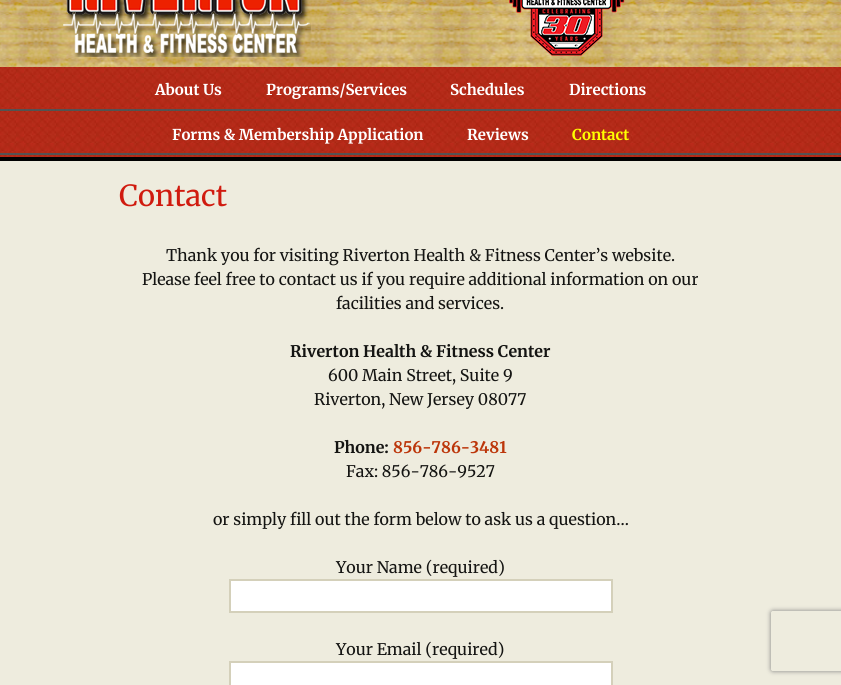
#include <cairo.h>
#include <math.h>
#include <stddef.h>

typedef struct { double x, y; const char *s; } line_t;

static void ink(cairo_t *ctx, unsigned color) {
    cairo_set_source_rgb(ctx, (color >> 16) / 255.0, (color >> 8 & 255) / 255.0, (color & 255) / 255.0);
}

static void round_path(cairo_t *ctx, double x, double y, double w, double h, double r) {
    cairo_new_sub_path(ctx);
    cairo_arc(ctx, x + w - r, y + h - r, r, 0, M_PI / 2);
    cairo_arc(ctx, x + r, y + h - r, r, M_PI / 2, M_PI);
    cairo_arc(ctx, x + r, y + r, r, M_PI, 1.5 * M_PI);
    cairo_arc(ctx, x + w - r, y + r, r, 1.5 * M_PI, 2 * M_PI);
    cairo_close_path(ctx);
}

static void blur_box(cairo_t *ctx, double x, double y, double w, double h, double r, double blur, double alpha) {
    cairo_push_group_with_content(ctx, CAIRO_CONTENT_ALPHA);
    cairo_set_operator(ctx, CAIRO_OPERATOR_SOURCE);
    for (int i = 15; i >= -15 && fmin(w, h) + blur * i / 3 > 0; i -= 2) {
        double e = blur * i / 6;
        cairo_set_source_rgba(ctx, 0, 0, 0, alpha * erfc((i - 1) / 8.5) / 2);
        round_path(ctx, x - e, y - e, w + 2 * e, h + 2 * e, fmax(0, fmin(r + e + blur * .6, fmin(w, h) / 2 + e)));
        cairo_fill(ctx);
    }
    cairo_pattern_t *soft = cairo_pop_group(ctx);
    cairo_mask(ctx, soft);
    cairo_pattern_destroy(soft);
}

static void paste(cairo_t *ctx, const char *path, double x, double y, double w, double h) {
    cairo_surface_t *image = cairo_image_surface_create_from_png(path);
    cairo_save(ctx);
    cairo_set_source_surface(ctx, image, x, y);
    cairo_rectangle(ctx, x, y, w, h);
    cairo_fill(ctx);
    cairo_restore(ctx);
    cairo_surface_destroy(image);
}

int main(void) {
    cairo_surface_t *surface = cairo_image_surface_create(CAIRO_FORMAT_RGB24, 841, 685);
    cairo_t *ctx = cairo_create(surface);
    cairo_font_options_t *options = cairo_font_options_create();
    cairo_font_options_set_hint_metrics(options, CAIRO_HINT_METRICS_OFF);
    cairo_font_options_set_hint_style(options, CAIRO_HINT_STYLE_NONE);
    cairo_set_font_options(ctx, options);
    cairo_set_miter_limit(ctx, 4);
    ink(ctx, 0xFFFFFF);
    cairo_paint(ctx);
    paste(ctx, "media/1.png", 0, 0, 841, 67);
    paste(ctx, "media/2.png", 63, 0, 248, 57);
    paste(ctx, "media/3.png", 509, 0, 116, 56);
    paste(ctx, "media/4.png", 0, 67, 841, 90);
    ink(ctx, 0x000000);
    cairo_rectangle(ctx, 0, 157, 841, 4);
    cairo_fill(ctx);
    cairo_select_font_face(ctx, "Merriweather", CAIRO_FONT_SLANT_NORMAL, CAIRO_FONT_WEIGHT_BOLD);
    cairo_set_font_size(ctx, 15);
    ink(ctx, 0xFFFFFF);
    {
        static const line_t items[] = {
            {155, 95, "About Us"},
            {266, 95, "Programs/Services"},
            {450, 95, "Schedules"},
            {569, 95, "Directions"},
            {172, 140, "Forms & Membership Application"},
            {467, 140, "Reviews"},
        };
        for (size_t i = 0; i < sizeof items / sizeof *items; i++) {
            cairo_move_to(ctx, items[i].x, items[i].y);
            cairo_show_text(ctx, items[i].s);
        }
    }
    ink(ctx, 0xFFFF00);
    cairo_move_to(ctx, 572, 140);
    cairo_show_text(ctx, "Contact");
    ink(ctx, 0xEEECDE);
    cairo_rectangle(ctx, 0, 161, 841, 524);
    cairo_fill(ctx);
    cairo_select_font_face(ctx, "Merriweather", CAIRO_FONT_SLANT_NORMAL, CAIRO_FONT_WEIGHT_NORMAL);
    cairo_set_font_size(ctx, 29);
    ink(ctx, 0xD01B0F);
    cairo_move_to(ctx, 119, 206);
    cairo_show_text(ctx, "Contact");
    cairo_set_font_size(ctx, 16);
    ink(ctx, 0x141412);
    {
        static const line_t items[] = {
            {166, 261, "Thank you for visiting Riverton Health & Fitness Center’s website."},
            {142, 285, "Please feel free to contact us if you require additional information on our"},
            {336, 309, "facilities and services."},
        };
        for (size_t i = 0; i < sizeof items / sizeof *items; i++) {
            cairo_move_to(ctx, items[i].x, items[i].y);
            cairo_show_text(ctx, items[i].s);
        }
    }
    cairo_select_font_face(ctx, "Merriweather", CAIRO_FONT_SLANT_NORMAL, CAIRO_FONT_WEIGHT_BOLD);
    cairo_move_to(ctx, 290, 357);
    cairo_show_text(ctx, "Riverton Health & Fitness Center");
    cairo_select_font_face(ctx, "Merriweather", CAIRO_FONT_SLANT_NORMAL, CAIRO_FONT_WEIGHT_NORMAL);
    cairo_move_to(ctx, 328, 381);
    cairo_show_text(ctx, "600 Main Street, Suite 9");
    cairo_move_to(ctx, 314, 405);
    cairo_show_text(ctx, "Riverton, New Jersey 08077");
    cairo_select_font_face(ctx, "Merriweather", CAIRO_FONT_SLANT_NORMAL, CAIRO_FONT_WEIGHT_BOLD);
    cairo_move_to(ctx, 334, 453);
    cairo_show_text(ctx, "Phone:");
    ink(ctx, 0xBC360A);
    cairo_move_to(ctx, 393, 453);
    cairo_show_text(ctx, "856-786-3481");
    cairo_select_font_face(ctx, "Merriweather", CAIRO_FONT_SLANT_NORMAL, CAIRO_FONT_WEIGHT_NORMAL);
    ink(ctx, 0x141412);
    {
        static const line_t items[] = {
            {346, 477, "Fax: 856-786-9527"},
            {213, 525, "or simply fill out the form below to ask us a question…"},
            {336, 573, "Your Name (required)"},
        };
        for (size_t i = 0; i < sizeof items / sizeof *items; i++) {
            cairo_move_to(ctx, items[i].x, items[i].y);
            cairo_show_text(ctx, items[i].s);
        }
    }
    ink(ctx, 0xFFFFFF);
    cairo_rectangle(ctx, 230, 580, 382, 32);
    cairo_fill_preserve(ctx);
    ink(ctx, 0xD4D0BA);
    cairo_stroke(ctx);
    ink(ctx, 0x141412);
    cairo_move_to(ctx, 336, 655);
    cairo_show_text(ctx, "Your Email (required)");
    ink(ctx, 0xFFFFFF);
    cairo_rectangle(ctx, 230, 662, 382, 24);
    cairo_fill_preserve(ctx);
    ink(ctx, 0xD4D0BA);
    cairo_stroke(ctx);
    cairo_save(ctx);
    cairo_set_fill_rule(ctx, CAIRO_FILL_RULE_EVEN_ODD);
    cairo_new_path(ctx);
    cairo_move_to(ctx, 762, 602);
    cairo_line_to(ctx, 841, 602);
    cairo_line_to(ctx, 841, 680);
    cairo_line_to(ctx, 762, 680);
    cairo_close_path(ctx);
    cairo_move_to(ctx, 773, 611);
    cairo_line_to(ctx, 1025, 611);
    cairo_curve_to(ctx, 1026, 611, 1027, 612, 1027, 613);
    cairo_line_to(ctx, 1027, 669);
    cairo_curve_to(ctx, 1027, 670, 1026, 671, 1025, 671);
    cairo_line_to(ctx, 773, 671);
    cairo_curve_to(ctx, 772, 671, 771, 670, 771, 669);
    cairo_line_to(ctx, 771, 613);
    cairo_curve_to(ctx, 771, 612, 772, 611, 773, 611);
    cairo_close_path(ctx);
    cairo_clip(ctx);
    ink(ctx, 0x808080);
    blur_box(ctx, 771, 611, 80, 60, 2, 2.5, 1);
    cairo_restore(ctx);
    cairo_surface_write_to_png(surface, "image.png");
    cairo_font_options_destroy(options);
    cairo_destroy(ctx);
    cairo_surface_destroy(surface);
    return 0;
}
